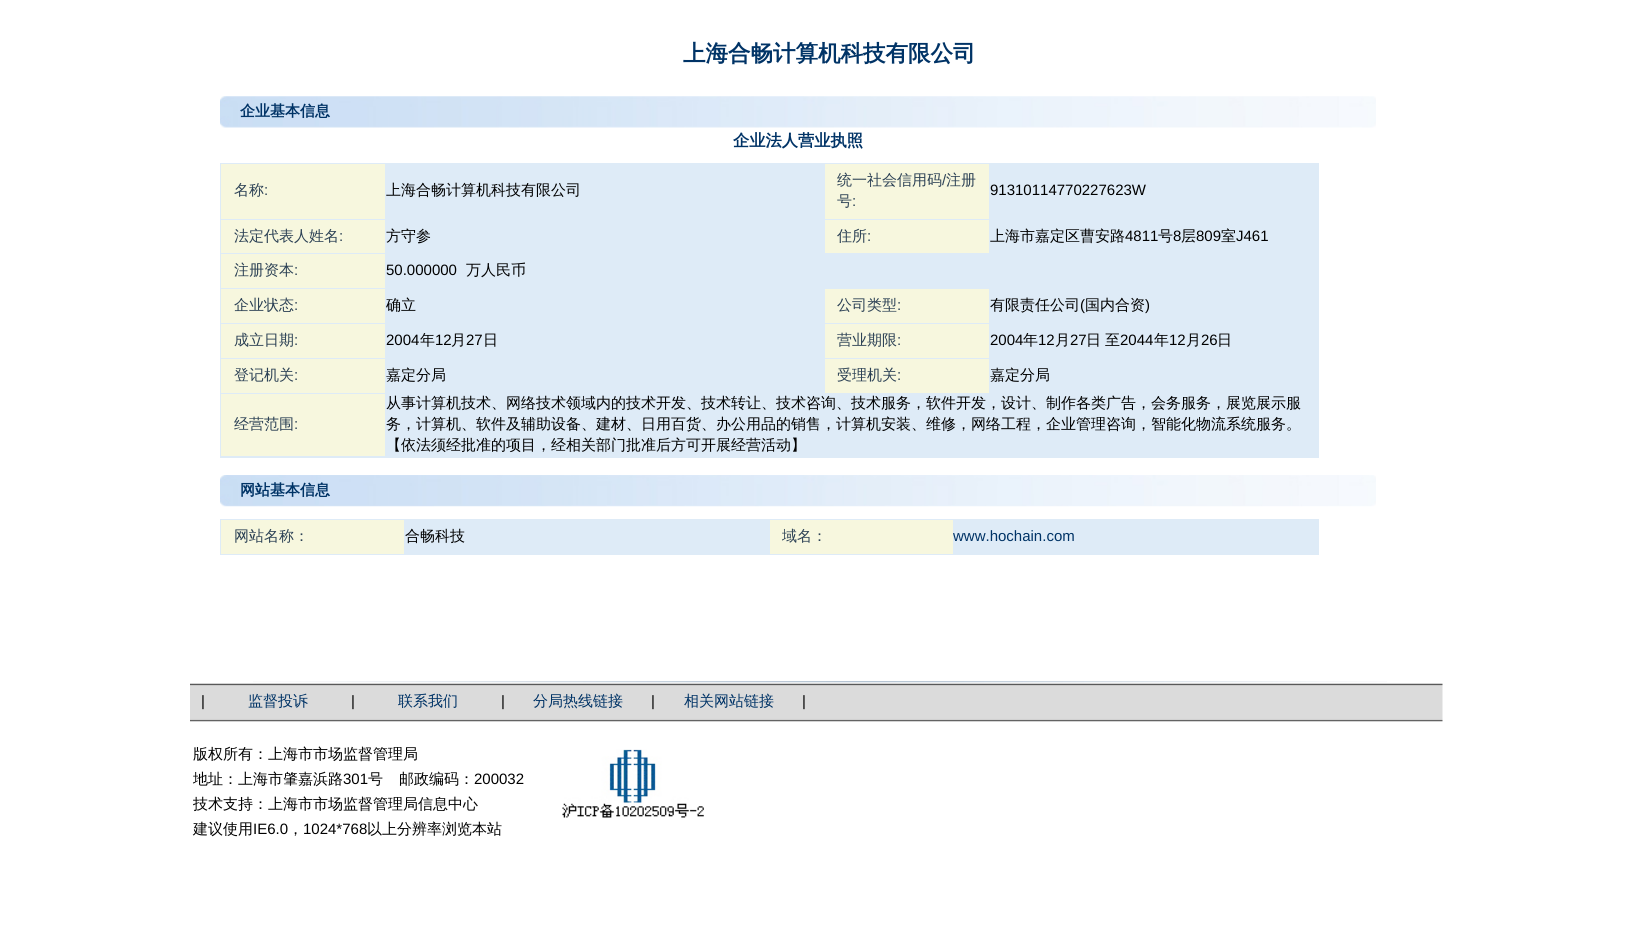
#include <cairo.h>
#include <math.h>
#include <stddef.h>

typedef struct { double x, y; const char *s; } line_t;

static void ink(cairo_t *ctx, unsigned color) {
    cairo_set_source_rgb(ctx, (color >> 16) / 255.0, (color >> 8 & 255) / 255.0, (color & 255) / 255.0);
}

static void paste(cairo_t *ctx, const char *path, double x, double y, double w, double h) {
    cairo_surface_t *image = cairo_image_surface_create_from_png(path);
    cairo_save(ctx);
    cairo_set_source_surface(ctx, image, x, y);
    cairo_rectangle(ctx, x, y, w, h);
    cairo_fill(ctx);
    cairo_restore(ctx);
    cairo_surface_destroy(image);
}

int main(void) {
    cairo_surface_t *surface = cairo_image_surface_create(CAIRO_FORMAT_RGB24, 1632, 925);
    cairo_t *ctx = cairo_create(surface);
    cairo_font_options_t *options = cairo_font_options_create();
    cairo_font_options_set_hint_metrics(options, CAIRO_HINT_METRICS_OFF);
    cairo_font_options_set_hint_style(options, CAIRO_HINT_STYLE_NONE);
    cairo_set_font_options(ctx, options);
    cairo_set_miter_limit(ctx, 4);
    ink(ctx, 0xFFFFFF);
    cairo_paint(ctx);
    cairo_select_font_face(ctx, "WenQuanYi Zen Hei", CAIRO_FONT_SLANT_NORMAL, CAIRO_FONT_WEIGHT_BOLD);
    cairo_set_font_size(ctx, 22.5);
    ink(ctx, 0x003366);
    cairo_move_to(ctx, 683, 61);
    cairo_show_text(ctx, "上海合畅计算机科技有限公司");
    paste(ctx, "media/1.png", 220, 96, 1156, 32);
    cairo_set_font_size(ctx, 15);
    cairo_move_to(ctx, 240, 116);
    cairo_show_text(ctx, "企业基本信息");
    cairo_set_font_size(ctx, 16.25);
    cairo_move_to(ctx, 733, 146);
    cairo_show_text(ctx, "企业法人营业执照");
    ink(ctx, 0xDEEBF7);
    cairo_rectangle(ctx, 220, 163, 1099, 295);
    cairo_fill(ctx);
    ink(ctx, 0xF7F7DE);
    cairo_rectangle(ctx, 221, 164, 164, 55);
    cairo_fill(ctx);
    cairo_select_font_face(ctx, "WenQuanYi Zen Hei Medium", CAIRO_FONT_SLANT_NORMAL, CAIRO_FONT_WEIGHT_NORMAL);
    cairo_set_font_size(ctx, 15);
    ink(ctx, 0x2C4155);
    cairo_move_to(ctx, 234, 195);
    cairo_show_text(ctx, "名称");
    cairo_select_font_face(ctx, "Liberation Sans", CAIRO_FONT_SLANT_NORMAL, CAIRO_FONT_WEIGHT_NORMAL);
    cairo_move_to(ctx, 264, 195);
    cairo_show_text(ctx, ":");
    cairo_select_font_face(ctx, "WenQuanYi Zen Hei Medium", CAIRO_FONT_SLANT_NORMAL, CAIRO_FONT_WEIGHT_NORMAL);
    ink(ctx, 0x000000);
    cairo_move_to(ctx, 386, 195);
    cairo_show_text(ctx, "上海合畅计算机科技有限公司");
    ink(ctx, 0xF7F7DE);
    cairo_rectangle(ctx, 825, 164, 164, 55);
    cairo_fill(ctx);
    ink(ctx, 0x2C4155);
    cairo_move_to(ctx, 837, 185);
    cairo_show_text(ctx, "统一社会信用码");
    cairo_select_font_face(ctx, "Liberation Sans", CAIRO_FONT_SLANT_NORMAL, CAIRO_FONT_WEIGHT_NORMAL);
    cairo_move_to(ctx, 942, 185);
    cairo_show_text(ctx, "/");
    cairo_select_font_face(ctx, "WenQuanYi Zen Hei Medium", CAIRO_FONT_SLANT_NORMAL, CAIRO_FONT_WEIGHT_NORMAL);
    cairo_move_to(ctx, 946, 185);
    cairo_show_text(ctx, "注册");
    cairo_move_to(ctx, 837, 206);
    cairo_show_text(ctx, "号");
    cairo_select_font_face(ctx, "Liberation Sans", CAIRO_FONT_SLANT_NORMAL, CAIRO_FONT_WEIGHT_NORMAL);
    cairo_move_to(ctx, 852, 206);
    cairo_show_text(ctx, ":");
    ink(ctx, 0x000000);
    cairo_move_to(ctx, 990, 195);
    cairo_show_text(ctx, "91310114770227623W");
    ink(ctx, 0xF7F7DE);
    cairo_rectangle(ctx, 221, 220, 164, 33);
    cairo_fill(ctx);
    cairo_select_font_face(ctx, "WenQuanYi Zen Hei Medium", CAIRO_FONT_SLANT_NORMAL, CAIRO_FONT_WEIGHT_NORMAL);
    ink(ctx, 0x2C4155);
    cairo_move_to(ctx, 234, 241);
    cairo_show_text(ctx, "法定代表人姓名");
    cairo_select_font_face(ctx, "Liberation Sans", CAIRO_FONT_SLANT_NORMAL, CAIRO_FONT_WEIGHT_NORMAL);
    cairo_move_to(ctx, 339, 241);
    cairo_show_text(ctx, ":");
    cairo_select_font_face(ctx, "WenQuanYi Zen Hei Medium", CAIRO_FONT_SLANT_NORMAL, CAIRO_FONT_WEIGHT_NORMAL);
    ink(ctx, 0x000000);
    cairo_move_to(ctx, 386, 241);
    cairo_show_text(ctx, "方守参");
    ink(ctx, 0xF7F7DE);
    cairo_rectangle(ctx, 825, 220, 164, 33);
    cairo_fill(ctx);
    ink(ctx, 0x2C4155);
    cairo_move_to(ctx, 837, 241);
    cairo_show_text(ctx, "住所");
    cairo_select_font_face(ctx, "Liberation Sans", CAIRO_FONT_SLANT_NORMAL, CAIRO_FONT_WEIGHT_NORMAL);
    cairo_move_to(ctx, 867, 241);
    cairo_show_text(ctx, ":");
    cairo_select_font_face(ctx, "WenQuanYi Zen Hei Medium", CAIRO_FONT_SLANT_NORMAL, CAIRO_FONT_WEIGHT_NORMAL);
    ink(ctx, 0x000000);
    cairo_move_to(ctx, 990, 241);
    cairo_show_text(ctx, "上海市嘉定区曹安路");
    cairo_select_font_face(ctx, "Liberation Sans", CAIRO_FONT_SLANT_NORMAL, CAIRO_FONT_WEIGHT_NORMAL);
    cairo_move_to(ctx, 1125, 241);
    cairo_show_text(ctx, "4811");
    cairo_select_font_face(ctx, "WenQuanYi Zen Hei Medium", CAIRO_FONT_SLANT_NORMAL, CAIRO_FONT_WEIGHT_NORMAL);
    cairo_move_to(ctx, 1158, 241);
    cairo_show_text(ctx, "号");
    cairo_select_font_face(ctx, "Liberation Sans", CAIRO_FONT_SLANT_NORMAL, CAIRO_FONT_WEIGHT_NORMAL);
    cairo_move_to(ctx, 1173, 241);
    cairo_show_text(ctx, "8");
    cairo_select_font_face(ctx, "WenQuanYi Zen Hei Medium", CAIRO_FONT_SLANT_NORMAL, CAIRO_FONT_WEIGHT_NORMAL);
    cairo_move_to(ctx, 1181, 241);
    cairo_show_text(ctx, "层");
    cairo_select_font_face(ctx, "Liberation Sans", CAIRO_FONT_SLANT_NORMAL, CAIRO_FONT_WEIGHT_NORMAL);
    cairo_move_to(ctx, 1196, 241);
    cairo_show_text(ctx, "809");
    cairo_select_font_face(ctx, "WenQuanYi Zen Hei Medium", CAIRO_FONT_SLANT_NORMAL, CAIRO_FONT_WEIGHT_NORMAL);
    cairo_move_to(ctx, 1221, 241);
    cairo_show_text(ctx, "室");
    cairo_select_font_face(ctx, "Liberation Sans", CAIRO_FONT_SLANT_NORMAL, CAIRO_FONT_WEIGHT_NORMAL);
    cairo_move_to(ctx, 1236, 241);
    cairo_show_text(ctx, "J461");
    ink(ctx, 0xF7F7DE);
    cairo_rectangle(ctx, 221, 254, 164, 34);
    cairo_fill(ctx);
    cairo_select_font_face(ctx, "WenQuanYi Zen Hei Medium", CAIRO_FONT_SLANT_NORMAL, CAIRO_FONT_WEIGHT_NORMAL);
    ink(ctx, 0x2C4155);
    cairo_move_to(ctx, 234, 275);
    cairo_show_text(ctx, "注册资本");
    cairo_select_font_face(ctx, "Liberation Sans", CAIRO_FONT_SLANT_NORMAL, CAIRO_FONT_WEIGHT_NORMAL);
    cairo_move_to(ctx, 294, 275);
    cairo_show_text(ctx, ":");
    ink(ctx, 0x000000);
    cairo_move_to(ctx, 386, 275);
    cairo_show_text(ctx, "50.000000");
    cairo_select_font_face(ctx, "WenQuanYi Zen Hei Medium", CAIRO_FONT_SLANT_NORMAL, CAIRO_FONT_WEIGHT_NORMAL);
    cairo_move_to(ctx, 466, 275);
    cairo_show_text(ctx, "万人民币");
    ink(ctx, 0xF7F7DE);
    cairo_rectangle(ctx, 221, 289, 164, 34);
    cairo_fill(ctx);
    ink(ctx, 0x2C4155);
    cairo_move_to(ctx, 234, 310);
    cairo_show_text(ctx, "企业状态");
    cairo_select_font_face(ctx, "Liberation Sans", CAIRO_FONT_SLANT_NORMAL, CAIRO_FONT_WEIGHT_NORMAL);
    cairo_move_to(ctx, 294, 310);
    cairo_show_text(ctx, ":");
    cairo_select_font_face(ctx, "WenQuanYi Zen Hei Medium", CAIRO_FONT_SLANT_NORMAL, CAIRO_FONT_WEIGHT_NORMAL);
    ink(ctx, 0x000000);
    cairo_move_to(ctx, 386, 310);
    cairo_show_text(ctx, "确立");
    ink(ctx, 0xF7F7DE);
    cairo_rectangle(ctx, 825, 289, 164, 34);
    cairo_fill(ctx);
    ink(ctx, 0x2C4155);
    cairo_move_to(ctx, 837, 310);
    cairo_show_text(ctx, "公司类型");
    cairo_select_font_face(ctx, "Liberation Sans", CAIRO_FONT_SLANT_NORMAL, CAIRO_FONT_WEIGHT_NORMAL);
    cairo_move_to(ctx, 897, 310);
    cairo_show_text(ctx, ":");
    cairo_select_font_face(ctx, "WenQuanYi Zen Hei Medium", CAIRO_FONT_SLANT_NORMAL, CAIRO_FONT_WEIGHT_NORMAL);
    ink(ctx, 0x000000);
    cairo_move_to(ctx, 990, 310);
    cairo_show_text(ctx, "有限责任公司");
    cairo_select_font_face(ctx, "Liberation Sans", CAIRO_FONT_SLANT_NORMAL, CAIRO_FONT_WEIGHT_NORMAL);
    cairo_move_to(ctx, 1080, 310);
    cairo_show_text(ctx, "(");
    cairo_select_font_face(ctx, "WenQuanYi Zen Hei Medium", CAIRO_FONT_SLANT_NORMAL, CAIRO_FONT_WEIGHT_NORMAL);
    cairo_move_to(ctx, 1085, 310);
    cairo_show_text(ctx, "国内合资");
    cairo_select_font_face(ctx, "Liberation Sans", CAIRO_FONT_SLANT_NORMAL, CAIRO_FONT_WEIGHT_NORMAL);
    cairo_move_to(ctx, 1145, 310);
    cairo_show_text(ctx, ")");
    ink(ctx, 0xF7F7DE);
    cairo_rectangle(ctx, 221, 324, 164, 34);
    cairo_fill(ctx);
    cairo_select_font_face(ctx, "WenQuanYi Zen Hei Medium", CAIRO_FONT_SLANT_NORMAL, CAIRO_FONT_WEIGHT_NORMAL);
    ink(ctx, 0x2C4155);
    cairo_move_to(ctx, 234, 345);
    cairo_show_text(ctx, "成立日期");
    cairo_select_font_face(ctx, "Liberation Sans", CAIRO_FONT_SLANT_NORMAL, CAIRO_FONT_WEIGHT_NORMAL);
    cairo_move_to(ctx, 294, 345);
    cairo_show_text(ctx, ":");
    ink(ctx, 0x000000);
    cairo_move_to(ctx, 386, 345);
    cairo_show_text(ctx, "2004");
    cairo_select_font_face(ctx, "WenQuanYi Zen Hei Medium", CAIRO_FONT_SLANT_NORMAL, CAIRO_FONT_WEIGHT_NORMAL);
    cairo_move_to(ctx, 420, 345);
    cairo_show_text(ctx, "年");
    cairo_select_font_face(ctx, "Liberation Sans", CAIRO_FONT_SLANT_NORMAL, CAIRO_FONT_WEIGHT_NORMAL);
    cairo_move_to(ctx, 435, 345);
    cairo_show_text(ctx, "12");
    cairo_select_font_face(ctx, "WenQuanYi Zen Hei Medium", CAIRO_FONT_SLANT_NORMAL, CAIRO_FONT_WEIGHT_NORMAL);
    cairo_move_to(ctx, 451, 345);
    cairo_show_text(ctx, "月");
    cairo_select_font_face(ctx, "Liberation Sans", CAIRO_FONT_SLANT_NORMAL, CAIRO_FONT_WEIGHT_NORMAL);
    cairo_move_to(ctx, 466, 345);
    cairo_show_text(ctx, "27");
    cairo_select_font_face(ctx, "WenQuanYi Zen Hei Medium", CAIRO_FONT_SLANT_NORMAL, CAIRO_FONT_WEIGHT_NORMAL);
    cairo_move_to(ctx, 483, 345);
    cairo_show_text(ctx, "日");
    ink(ctx, 0xF7F7DE);
    cairo_rectangle(ctx, 825, 324, 164, 34);
    cairo_fill(ctx);
    ink(ctx, 0x2C4155);
    cairo_move_to(ctx, 837, 345);
    cairo_show_text(ctx, "营业期限");
    cairo_select_font_face(ctx, "Liberation Sans", CAIRO_FONT_SLANT_NORMAL, CAIRO_FONT_WEIGHT_NORMAL);
    cairo_move_to(ctx, 897, 345);
    cairo_show_text(ctx, ":");
    ink(ctx, 0x000000);
    cairo_move_to(ctx, 990, 345);
    cairo_show_text(ctx, "2004");
    cairo_select_font_face(ctx, "WenQuanYi Zen Hei Medium", CAIRO_FONT_SLANT_NORMAL, CAIRO_FONT_WEIGHT_NORMAL);
    cairo_move_to(ctx, 1023, 345);
    cairo_show_text(ctx, "年");
    cairo_select_font_face(ctx, "Liberation Sans", CAIRO_FONT_SLANT_NORMAL, CAIRO_FONT_WEIGHT_NORMAL);
    cairo_move_to(ctx, 1038, 345);
    cairo_show_text(ctx, "12");
    cairo_select_font_face(ctx, "WenQuanYi Zen Hei Medium", CAIRO_FONT_SLANT_NORMAL, CAIRO_FONT_WEIGHT_NORMAL);
    cairo_move_to(ctx, 1055, 345);
    cairo_show_text(ctx, "月");
    cairo_select_font_face(ctx, "Liberation Sans", CAIRO_FONT_SLANT_NORMAL, CAIRO_FONT_WEIGHT_NORMAL);
    cairo_move_to(ctx, 1070, 345);
    cairo_show_text(ctx, "27");
    cairo_select_font_face(ctx, "WenQuanYi Zen Hei Medium", CAIRO_FONT_SLANT_NORMAL, CAIRO_FONT_WEIGHT_NORMAL);
    cairo_move_to(ctx, 1086, 345);
    cairo_show_text(ctx, "日");
    cairo_move_to(ctx, 1105, 345);
    cairo_show_text(ctx, "至");
    cairo_select_font_face(ctx, "Liberation Sans", CAIRO_FONT_SLANT_NORMAL, CAIRO_FONT_WEIGHT_NORMAL);
    cairo_move_to(ctx, 1120, 345);
    cairo_show_text(ctx, "2044");
    cairo_select_font_face(ctx, "WenQuanYi Zen Hei Medium", CAIRO_FONT_SLANT_NORMAL, CAIRO_FONT_WEIGHT_NORMAL);
    cairo_move_to(ctx, 1154, 345);
    cairo_show_text(ctx, "年");
    cairo_select_font_face(ctx, "Liberation Sans", CAIRO_FONT_SLANT_NORMAL, CAIRO_FONT_WEIGHT_NORMAL);
    cairo_move_to(ctx, 1169, 345);
    cairo_show_text(ctx, "12");
    cairo_select_font_face(ctx, "WenQuanYi Zen Hei Medium", CAIRO_FONT_SLANT_NORMAL, CAIRO_FONT_WEIGHT_NORMAL);
    cairo_move_to(ctx, 1186, 345);
    cairo_show_text(ctx, "月");
    cairo_select_font_face(ctx, "Liberation Sans", CAIRO_FONT_SLANT_NORMAL, CAIRO_FONT_WEIGHT_NORMAL);
    cairo_move_to(ctx, 1201, 345);
    cairo_show_text(ctx, "26");
    cairo_select_font_face(ctx, "WenQuanYi Zen Hei Medium", CAIRO_FONT_SLANT_NORMAL, CAIRO_FONT_WEIGHT_NORMAL);
    cairo_move_to(ctx, 1217, 345);
    cairo_show_text(ctx, "日");
    ink(ctx, 0xF7F7DE);
    cairo_rectangle(ctx, 221, 359, 164, 34);
    cairo_fill(ctx);
    ink(ctx, 0x2C4155);
    cairo_move_to(ctx, 234, 380);
    cairo_show_text(ctx, "登记机关");
    cairo_select_font_face(ctx, "Liberation Sans", CAIRO_FONT_SLANT_NORMAL, CAIRO_FONT_WEIGHT_NORMAL);
    cairo_move_to(ctx, 294, 380);
    cairo_show_text(ctx, ":");
    cairo_select_font_face(ctx, "WenQuanYi Zen Hei Medium", CAIRO_FONT_SLANT_NORMAL, CAIRO_FONT_WEIGHT_NORMAL);
    ink(ctx, 0x000000);
    cairo_move_to(ctx, 386, 380);
    cairo_show_text(ctx, "嘉定分局");
    ink(ctx, 0xF7F7DE);
    cairo_rectangle(ctx, 825, 359, 164, 34);
    cairo_fill(ctx);
    ink(ctx, 0x2C4155);
    cairo_move_to(ctx, 837, 380);
    cairo_show_text(ctx, "受理机关");
    cairo_select_font_face(ctx, "Liberation Sans", CAIRO_FONT_SLANT_NORMAL, CAIRO_FONT_WEIGHT_NORMAL);
    cairo_move_to(ctx, 897, 380);
    cairo_show_text(ctx, ":");
    cairo_select_font_face(ctx, "WenQuanYi Zen Hei Medium", CAIRO_FONT_SLANT_NORMAL, CAIRO_FONT_WEIGHT_NORMAL);
    ink(ctx, 0x000000);
    cairo_move_to(ctx, 990, 380);
    cairo_show_text(ctx, "嘉定分局");
    ink(ctx, 0xF7F7DE);
    cairo_rectangle(ctx, 221, 394, 164, 62);
    cairo_fill(ctx);
    ink(ctx, 0x2C4155);
    cairo_move_to(ctx, 234, 429);
    cairo_show_text(ctx, "经营范围");
    cairo_select_font_face(ctx, "Liberation Sans", CAIRO_FONT_SLANT_NORMAL, CAIRO_FONT_WEIGHT_NORMAL);
    cairo_move_to(ctx, 294, 429);
    cairo_show_text(ctx, ":");
    cairo_select_font_face(ctx, "WenQuanYi Zen Hei Medium", CAIRO_FONT_SLANT_NORMAL, CAIRO_FONT_WEIGHT_NORMAL);
    ink(ctx, 0x000000);
    {
        static const line_t items[] = {
            {386, 408, "从事计算机技术、网络技术领域内的技术开发、技术转让、技术咨询、技术服务，软件开发，设计、制作各类广告，会务服务，展览展示服"},
            {386, 429, "务，计算机、软件及辅助设备、建材、日用百货、办公用品的销售，计算机安装、维修，网络工程，企业管理咨询，智能化物流系统服务。"},
            {386, 450, "【依法须经批准的项目，经相关部门批准后方可开展经营活动】"},
        };
        for (size_t i = 0; i < sizeof items / sizeof *items; i++) {
            cairo_move_to(ctx, items[i].x, items[i].y);
            cairo_show_text(ctx, items[i].s);
        }
    }
    paste(ctx, "media/2.png", 220, 475, 1156, 32);
    cairo_select_font_face(ctx, "WenQuanYi Zen Hei", CAIRO_FONT_SLANT_NORMAL, CAIRO_FONT_WEIGHT_BOLD);
    ink(ctx, 0x003366);
    cairo_move_to(ctx, 240, 495);
    cairo_show_text(ctx, "网站基本信息");
    ink(ctx, 0xDEEBF7);
    cairo_rectangle(ctx, 220, 519, 1099, 36);
    cairo_fill(ctx);
    ink(ctx, 0xF7F7DE);
    cairo_rectangle(ctx, 221, 520, 183, 34);
    cairo_fill(ctx);
    cairo_select_font_face(ctx, "WenQuanYi Zen Hei Medium", CAIRO_FONT_SLANT_NORMAL, CAIRO_FONT_WEIGHT_NORMAL);
    ink(ctx, 0x2C4155);
    cairo_move_to(ctx, 234, 541);
    cairo_show_text(ctx, "网站名称：");
    ink(ctx, 0x000000);
    cairo_move_to(ctx, 405, 541);
    cairo_show_text(ctx, "合畅科技");
    ink(ctx, 0xF7F7DE);
    cairo_rectangle(ctx, 770, 520, 183, 34);
    cairo_fill(ctx);
    ink(ctx, 0x2C4155);
    cairo_move_to(ctx, 782, 541);
    cairo_show_text(ctx, "域名：");
    cairo_select_font_face(ctx, "Liberation Sans", CAIRO_FONT_SLANT_NORMAL, CAIRO_FONT_WEIGHT_NORMAL);
    ink(ctx, 0x003366);
    cairo_move_to(ctx, 953, 541);
    cairo_show_text(ctx, "www.hochain.com");
    paste(ctx, "media/3.png", 253, 681, 1134, 2);
    paste(ctx, "media/4.png", 190, 682, 1253, 40);
    ink(ctx, 0x000000);
    cairo_move_to(ctx, 201, 706);
    cairo_show_text(ctx, "|");
    cairo_select_font_face(ctx, "WenQuanYi Zen Hei Medium", CAIRO_FONT_SLANT_NORMAL, CAIRO_FONT_WEIGHT_NORMAL);
    ink(ctx, 0x003366);
    cairo_move_to(ctx, 248, 706);
    cairo_show_text(ctx, "监督投诉");
    cairo_select_font_face(ctx, "Liberation Sans", CAIRO_FONT_SLANT_NORMAL, CAIRO_FONT_WEIGHT_NORMAL);
    ink(ctx, 0x000000);
    cairo_move_to(ctx, 351, 706);
    cairo_show_text(ctx, "|");
    cairo_select_font_face(ctx, "WenQuanYi Zen Hei Medium", CAIRO_FONT_SLANT_NORMAL, CAIRO_FONT_WEIGHT_NORMAL);
    ink(ctx, 0x003366);
    cairo_move_to(ctx, 398, 706);
    cairo_show_text(ctx, "联系我们");
    cairo_select_font_face(ctx, "Liberation Sans", CAIRO_FONT_SLANT_NORMAL, CAIRO_FONT_WEIGHT_NORMAL);
    ink(ctx, 0x000000);
    cairo_move_to(ctx, 501, 706);
    cairo_show_text(ctx, "|");
    cairo_select_font_face(ctx, "WenQuanYi Zen Hei Medium", CAIRO_FONT_SLANT_NORMAL, CAIRO_FONT_WEIGHT_NORMAL);
    ink(ctx, 0x003366);
    cairo_move_to(ctx, 533, 706);
    cairo_show_text(ctx, "分局热线链接");
    cairo_select_font_face(ctx, "Liberation Sans", CAIRO_FONT_SLANT_NORMAL, CAIRO_FONT_WEIGHT_NORMAL);
    ink(ctx, 0x000000);
    cairo_move_to(ctx, 651, 706);
    cairo_show_text(ctx, "|");
    cairo_select_font_face(ctx, "WenQuanYi Zen Hei Medium", CAIRO_FONT_SLANT_NORMAL, CAIRO_FONT_WEIGHT_NORMAL);
    ink(ctx, 0x003366);
    cairo_move_to(ctx, 684, 706);
    cairo_show_text(ctx, "相关网站链接");
    cairo_select_font_face(ctx, "Liberation Sans", CAIRO_FONT_SLANT_NORMAL, CAIRO_FONT_WEIGHT_NORMAL);
    ink(ctx, 0x000000);
    cairo_move_to(ctx, 802, 706);
    cairo_show_text(ctx, "|");
    cairo_select_font_face(ctx, "WenQuanYi Zen Hei Medium", CAIRO_FONT_SLANT_NORMAL, CAIRO_FONT_WEIGHT_NORMAL);
    cairo_move_to(ctx, 193, 759);
    cairo_show_text(ctx, "版权所有：上海市市场监督管理局");
    cairo_move_to(ctx, 193, 784);
    cairo_show_text(ctx, "地址：上海市肇嘉浜路");
    cairo_select_font_face(ctx, "Liberation Sans", CAIRO_FONT_SLANT_NORMAL, CAIRO_FONT_WEIGHT_NORMAL);
    cairo_move_to(ctx, 343, 784);
    cairo_show_text(ctx, "301");
    cairo_select_font_face(ctx, "WenQuanYi Zen Hei Medium", CAIRO_FONT_SLANT_NORMAL, CAIRO_FONT_WEIGHT_NORMAL);
    cairo_move_to(ctx, 368, 784);
    cairo_show_text(ctx, "号");
    cairo_move_to(ctx, 399, 784);
    cairo_show_text(ctx, "邮政编码：");
    cairo_select_font_face(ctx, "Liberation Sans", CAIRO_FONT_SLANT_NORMAL, CAIRO_FONT_WEIGHT_NORMAL);
    cairo_move_to(ctx, 474, 784);
    cairo_show_text(ctx, "200032");
    cairo_select_font_face(ctx, "WenQuanYi Zen Hei Medium", CAIRO_FONT_SLANT_NORMAL, CAIRO_FONT_WEIGHT_NORMAL);
    cairo_move_to(ctx, 193, 809);
    cairo_show_text(ctx, "技术支持：上海市市场监督管理局信息中心");
    cairo_move_to(ctx, 193, 834);
    cairo_show_text(ctx, "建议使用");
    cairo_select_font_face(ctx, "Liberation Sans", CAIRO_FONT_SLANT_NORMAL, CAIRO_FONT_WEIGHT_NORMAL);
    cairo_move_to(ctx, 253, 834);
    cairo_show_text(ctx, "IE6.0");
    cairo_select_font_face(ctx, "WenQuanYi Zen Hei Medium", CAIRO_FONT_SLANT_NORMAL, CAIRO_FONT_WEIGHT_NORMAL);
    cairo_move_to(ctx, 288, 834);
    cairo_show_text(ctx, "，");
    cairo_select_font_face(ctx, "Liberation Sans", CAIRO_FONT_SLANT_NORMAL, CAIRO_FONT_WEIGHT_NORMAL);
    cairo_move_to(ctx, 303, 834);
    cairo_show_text(ctx, "1024*768");
    cairo_select_font_face(ctx, "WenQuanYi Zen Hei Medium", CAIRO_FONT_SLANT_NORMAL, CAIRO_FONT_WEIGHT_NORMAL);
    cairo_move_to(ctx, 367, 834);
    cairo_show_text(ctx, "以上分辨率浏览本站");
    paste(ctx, "media/5.png", 562, 749, 142, 69);
    cairo_surface_write_to_png(surface, "image.png");
    cairo_font_options_destroy(options);
    cairo_destroy(ctx);
    cairo_surface_destroy(surface);
    return 0;
}
